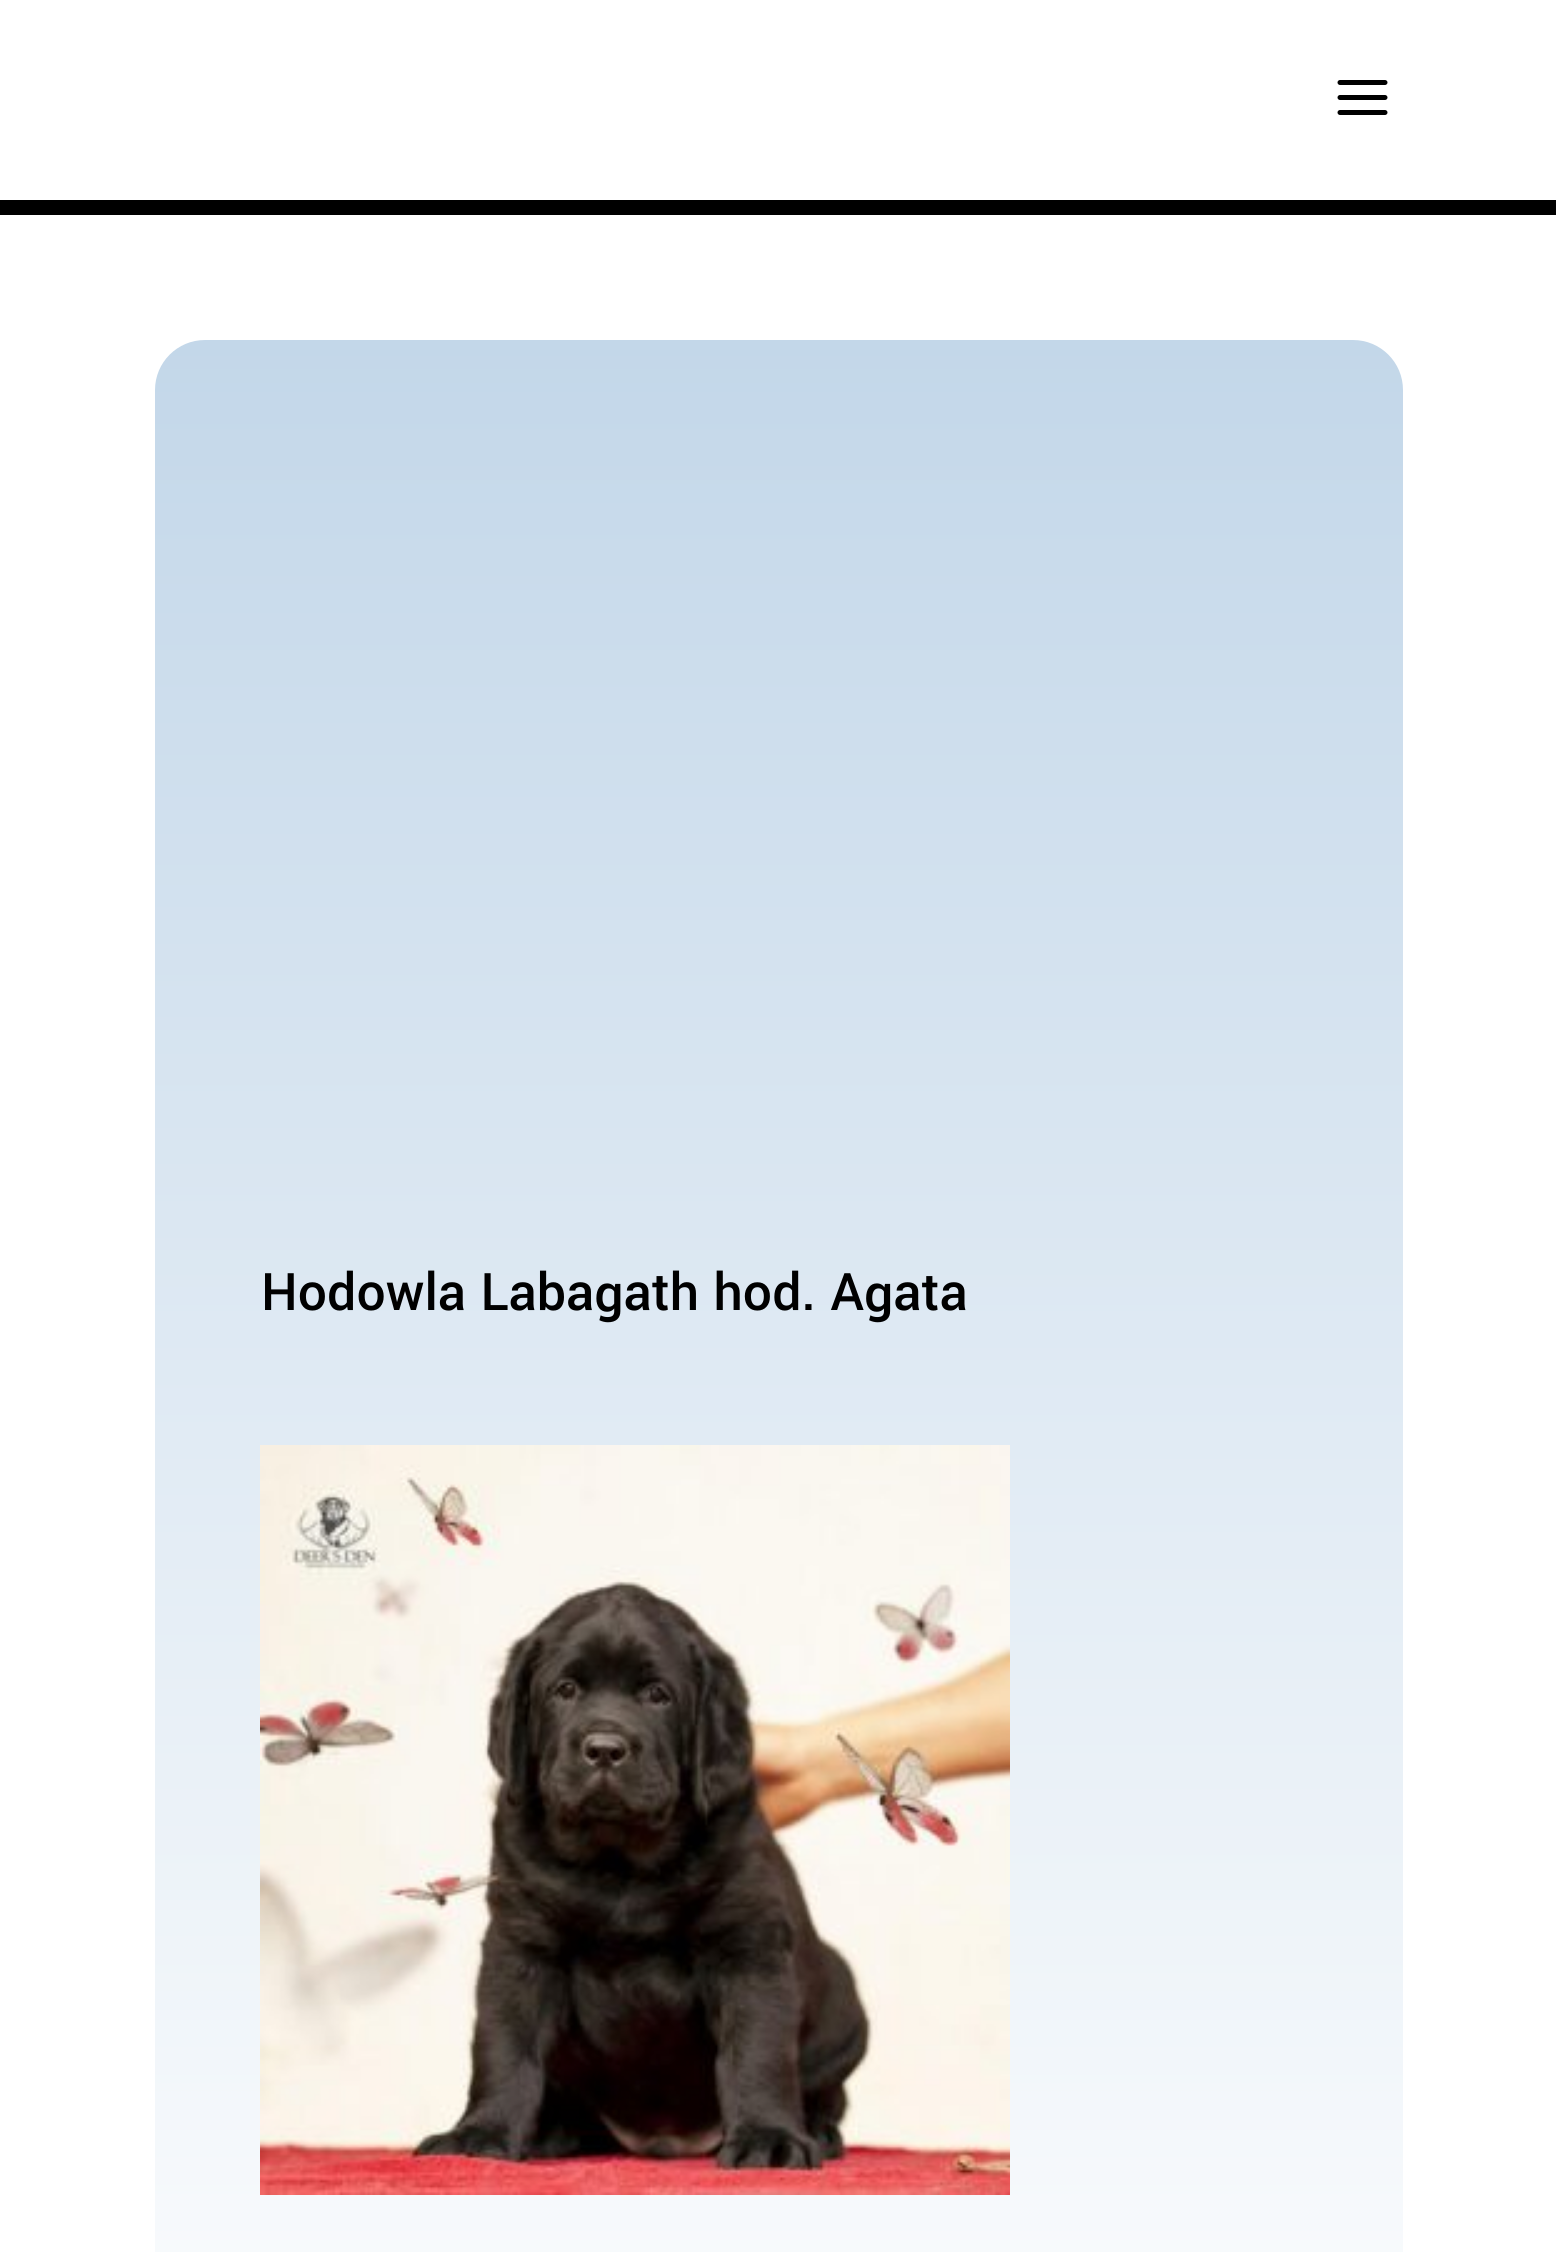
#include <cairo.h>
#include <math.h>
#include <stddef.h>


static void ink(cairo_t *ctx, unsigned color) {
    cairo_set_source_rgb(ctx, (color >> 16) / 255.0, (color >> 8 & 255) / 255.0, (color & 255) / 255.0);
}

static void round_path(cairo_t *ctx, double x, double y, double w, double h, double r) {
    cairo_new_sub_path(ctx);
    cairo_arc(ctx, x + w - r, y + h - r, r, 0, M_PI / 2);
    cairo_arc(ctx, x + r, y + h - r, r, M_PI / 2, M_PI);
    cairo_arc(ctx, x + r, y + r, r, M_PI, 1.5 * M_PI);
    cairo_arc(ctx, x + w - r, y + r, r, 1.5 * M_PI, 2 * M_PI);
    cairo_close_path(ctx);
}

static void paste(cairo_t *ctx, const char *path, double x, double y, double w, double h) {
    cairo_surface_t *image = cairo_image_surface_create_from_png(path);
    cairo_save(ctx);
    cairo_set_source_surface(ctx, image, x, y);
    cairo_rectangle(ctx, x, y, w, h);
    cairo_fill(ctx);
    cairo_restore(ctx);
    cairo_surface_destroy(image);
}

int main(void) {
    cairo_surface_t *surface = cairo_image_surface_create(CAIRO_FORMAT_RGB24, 1556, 2252);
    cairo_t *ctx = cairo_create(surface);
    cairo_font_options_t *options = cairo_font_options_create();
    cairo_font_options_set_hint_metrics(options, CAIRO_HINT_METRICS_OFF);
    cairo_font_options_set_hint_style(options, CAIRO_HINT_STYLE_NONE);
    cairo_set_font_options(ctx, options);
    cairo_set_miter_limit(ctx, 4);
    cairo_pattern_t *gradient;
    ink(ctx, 0x000000);
    cairo_paint(ctx);
    ink(ctx, 0xFFFFFF);
    cairo_rectangle(ctx, 0, 0, 1556, 200);
    cairo_fill(ctx);
    paste(ctx, "media/1.png", 1337, 80, 51, 35);
    cairo_rectangle(ctx, 0, 215, 1556, 2037);
    cairo_fill(ctx);
    gradient = cairo_pattern_create_linear(779, 340, 779, 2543);
    cairo_pattern_add_color_stop_rgba(gradient, 0, 0.765, 0.843, 0.914, 1);
    cairo_pattern_add_color_stop_rgba(gradient, 1, 1, 1, 1, 1);
    cairo_set_source(ctx, gradient);
    cairo_pattern_destroy(gradient);
    round_path(ctx, 155, 340, 1248, 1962, 50);
    cairo_fill(ctx);
    cairo_select_font_face(ctx, "Yantramanav Medium", CAIRO_FONT_SLANT_NORMAL, CAIRO_FONT_WEIGHT_NORMAL);
    cairo_set_font_size(ctx, 57.5);
    ink(ctx, 0x000000);
    cairo_move_to(ctx, 261, 1310);
    cairo_show_text(ctx, "Hodowla Labagath hod. Agata");
    paste(ctx, "media/2.png", 260, 1445, 750, 750);
    cairo_surface_write_to_png(surface, "image.png");
    cairo_font_options_destroy(options);
    cairo_destroy(ctx);
    cairo_surface_destroy(surface);
    return 0;
}
